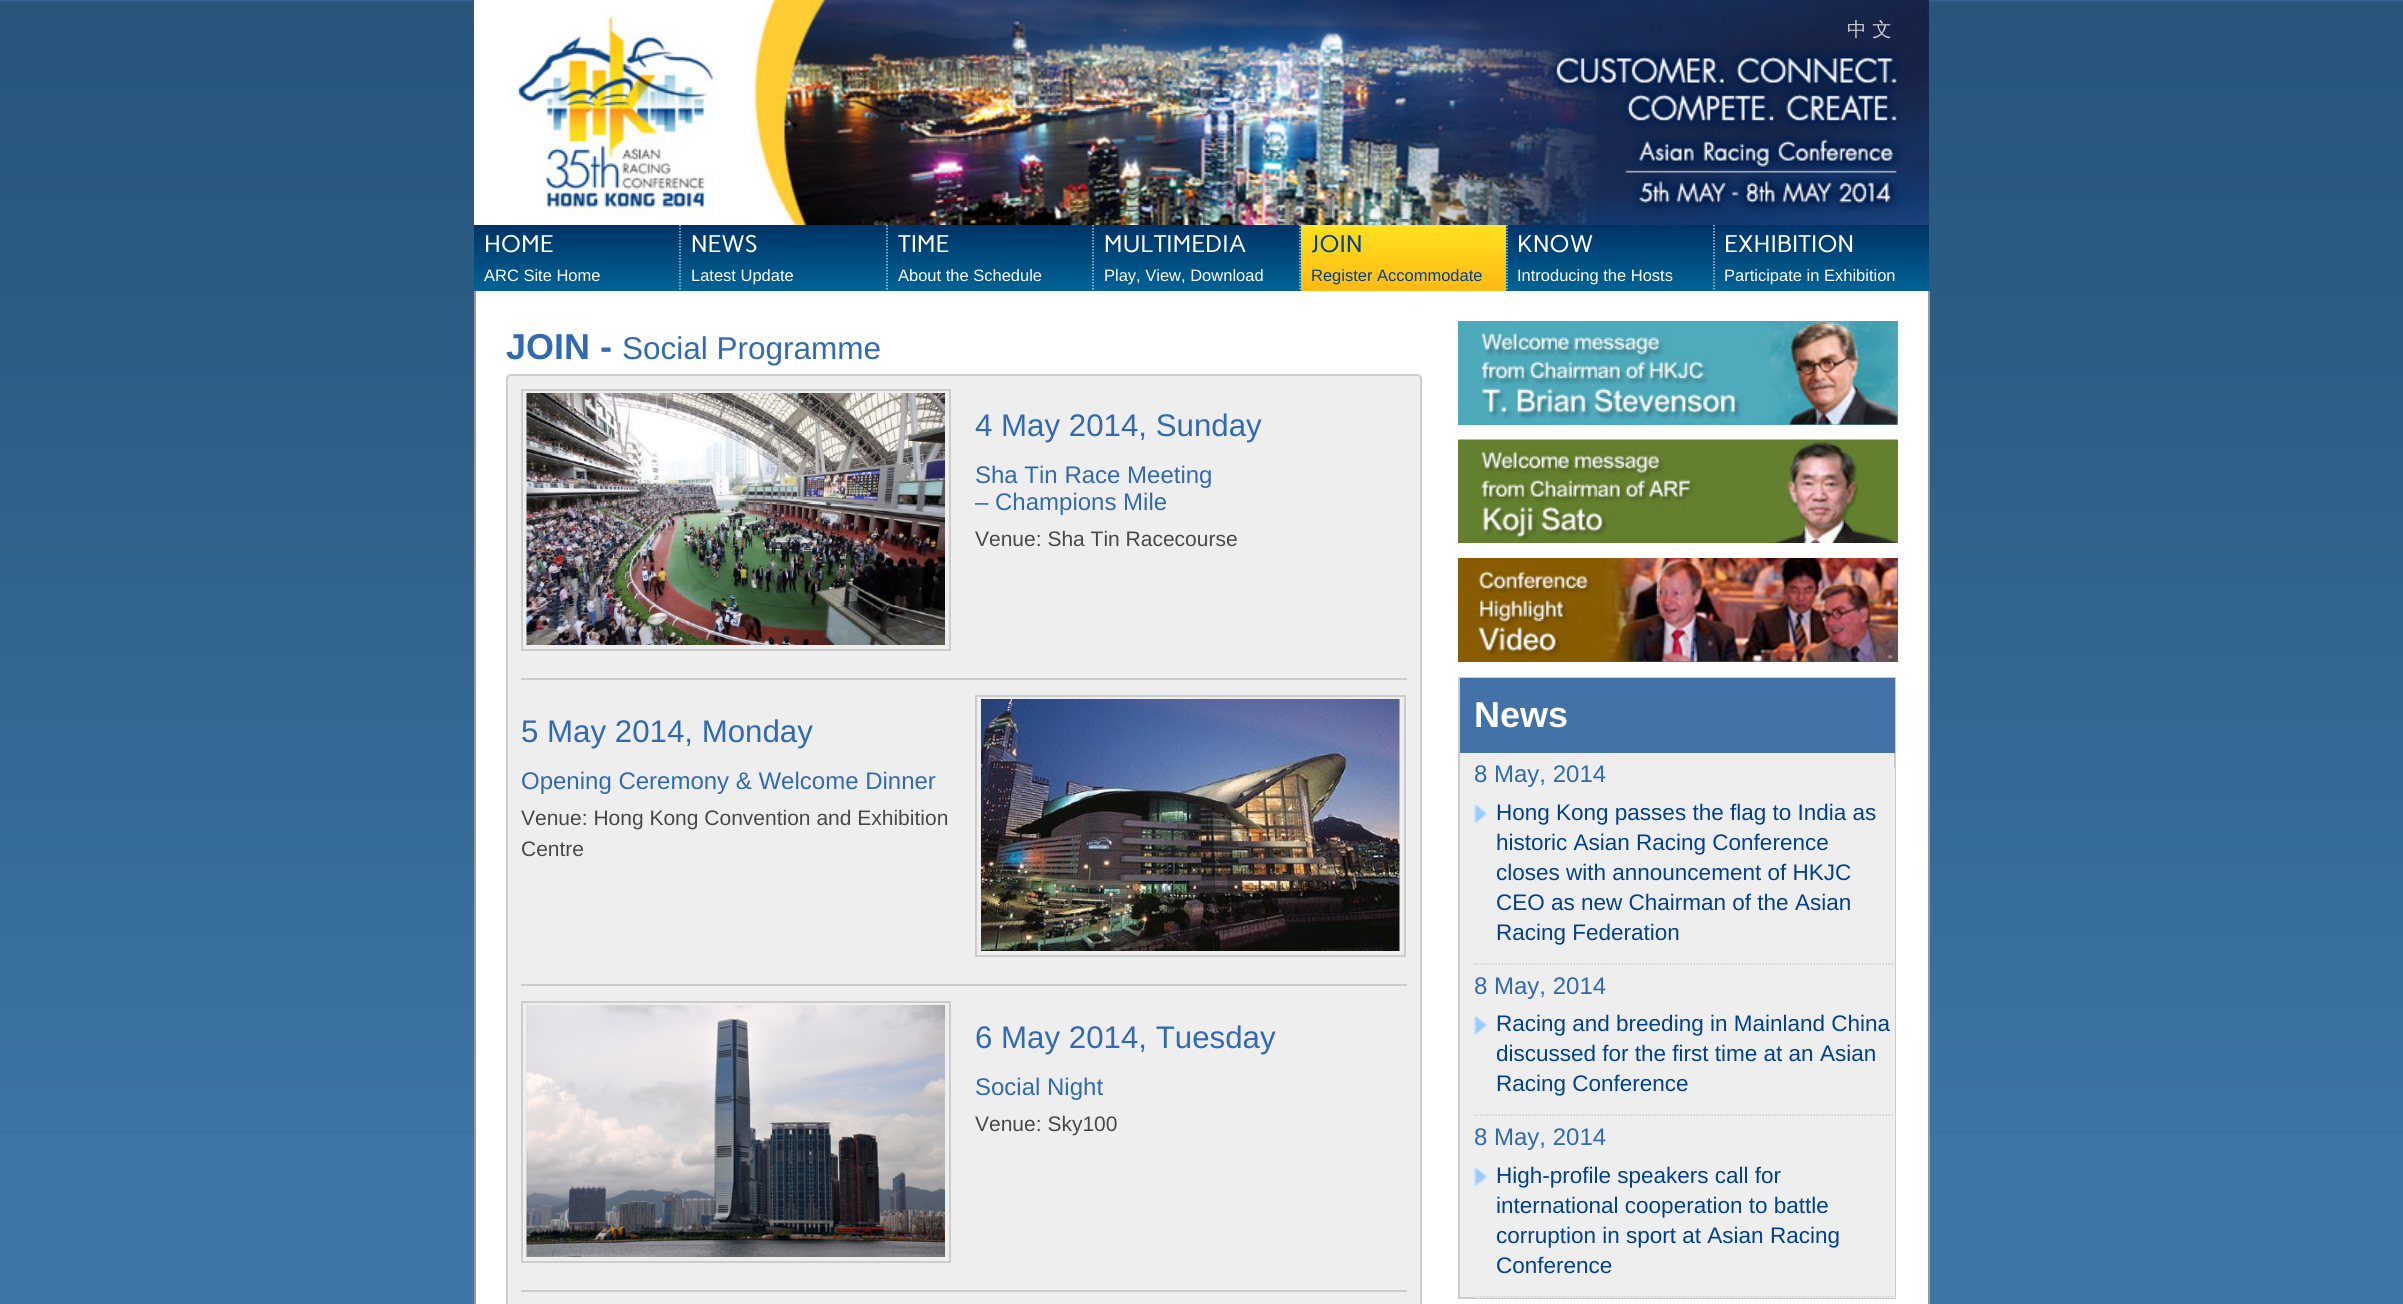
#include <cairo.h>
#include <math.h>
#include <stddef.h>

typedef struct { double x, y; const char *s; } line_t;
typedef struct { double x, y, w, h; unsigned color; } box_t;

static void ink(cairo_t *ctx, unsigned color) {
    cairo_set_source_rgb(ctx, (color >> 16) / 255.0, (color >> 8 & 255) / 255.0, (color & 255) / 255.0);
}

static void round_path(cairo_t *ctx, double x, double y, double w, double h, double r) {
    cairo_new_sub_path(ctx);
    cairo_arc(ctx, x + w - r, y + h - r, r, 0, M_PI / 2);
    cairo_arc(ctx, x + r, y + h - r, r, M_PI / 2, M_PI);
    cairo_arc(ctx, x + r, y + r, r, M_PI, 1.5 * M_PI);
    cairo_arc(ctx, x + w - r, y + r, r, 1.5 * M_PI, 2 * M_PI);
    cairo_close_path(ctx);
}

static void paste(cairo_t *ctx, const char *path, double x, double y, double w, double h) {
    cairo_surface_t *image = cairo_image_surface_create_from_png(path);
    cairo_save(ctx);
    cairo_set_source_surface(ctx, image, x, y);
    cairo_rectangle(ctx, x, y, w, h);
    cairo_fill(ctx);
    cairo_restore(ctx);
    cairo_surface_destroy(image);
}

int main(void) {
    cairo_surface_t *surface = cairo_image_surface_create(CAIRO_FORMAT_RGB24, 2403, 1304);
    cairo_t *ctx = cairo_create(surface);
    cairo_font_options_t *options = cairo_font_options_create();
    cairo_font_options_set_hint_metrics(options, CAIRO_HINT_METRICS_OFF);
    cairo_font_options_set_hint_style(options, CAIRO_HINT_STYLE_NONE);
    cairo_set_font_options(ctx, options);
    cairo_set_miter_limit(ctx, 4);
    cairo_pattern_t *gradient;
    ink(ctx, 0x3D76A6);
    cairo_paint(ctx);
    paste(ctx, "media/1.png", 0, 0, 2403, 1134);
    paste(ctx, "media/2.png", 474, 0, 1455, 225);
    cairo_select_font_face(ctx, "WenQuanYi Zen Hei Medium", CAIRO_FONT_SLANT_NORMAL, CAIRO_FONT_WEIGHT_NORMAL);
    cairo_set_font_size(ctx, 19.5);
    ink(ctx, 0xCCCCCC);
    cairo_move_to(ctx, 1847, 36);
    cairo_show_text(ctx, "中 文");
    gradient = cairo_pattern_create_linear(1202, 225, 1202, 291);
    cairo_pattern_add_color_stop_rgba(gradient, 0, 0, 0.2, 0.4, 1);
    cairo_pattern_add_color_stop_rgba(gradient, 1, 0, 0.388, 0.588, 1);
    cairo_set_source(ctx, gradient);
    cairo_pattern_destroy(gradient);
    cairo_rectangle(ctx, 474, 225, 1455, 66);
    cairo_fill(ctx);
    cairo_new_path(ctx);
    cairo_move_to(ctx, 680, 225);
    cairo_line_to(ctx, 680, 291);
    ink(ctx, 0x96CDE1);
    cairo_set_line_width(ctx, 1.5);
    cairo_set_dash(ctx, (double[]){1.5, 1.5}, 2, 0);
    cairo_stroke(ctx);
    cairo_select_font_face(ctx, "Carme", CAIRO_FONT_SLANT_NORMAL, CAIRO_FONT_WEIGHT_NORMAL);
    cairo_set_font_size(ctx, 24);
    ink(ctx, 0xFFFFFF);
    cairo_move_to(ctx, 484, 252);
    cairo_show_text(ctx, "HOME");
    cairo_select_font_face(ctx, "Liberation Sans", CAIRO_FONT_SLANT_NORMAL, CAIRO_FONT_WEIGHT_NORMAL);
    cairo_set_font_size(ctx, 16.5);
    cairo_move_to(ctx, 484, 281);
    cairo_show_text(ctx, "ARC Site Home");
    cairo_new_path(ctx);
    cairo_move_to(ctx, 887, 225);
    cairo_line_to(ctx, 887, 291);
    ink(ctx, 0x96CDE1);
    cairo_stroke(ctx);
    cairo_select_font_face(ctx, "Carme", CAIRO_FONT_SLANT_NORMAL, CAIRO_FONT_WEIGHT_NORMAL);
    cairo_set_font_size(ctx, 24);
    ink(ctx, 0xFFFFFF);
    cairo_move_to(ctx, 691, 252);
    cairo_show_text(ctx, "NEWS");
    cairo_select_font_face(ctx, "Liberation Sans", CAIRO_FONT_SLANT_NORMAL, CAIRO_FONT_WEIGHT_NORMAL);
    cairo_set_font_size(ctx, 16.5);
    cairo_move_to(ctx, 691, 281);
    cairo_show_text(ctx, "Latest Update");
    cairo_new_path(ctx);
    cairo_move_to(ctx, 1093, 225);
    cairo_line_to(ctx, 1093, 291);
    ink(ctx, 0x96CDE1);
    cairo_stroke(ctx);
    cairo_select_font_face(ctx, "Carme", CAIRO_FONT_SLANT_NORMAL, CAIRO_FONT_WEIGHT_NORMAL);
    cairo_set_font_size(ctx, 24);
    ink(ctx, 0xFFFFFF);
    cairo_move_to(ctx, 898, 252);
    cairo_show_text(ctx, "TIME");
    cairo_select_font_face(ctx, "Liberation Sans", CAIRO_FONT_SLANT_NORMAL, CAIRO_FONT_WEIGHT_NORMAL);
    cairo_set_font_size(ctx, 16.5);
    cairo_move_to(ctx, 898, 281);
    cairo_show_text(ctx, "About the Schedule");
    cairo_new_path(ctx);
    cairo_move_to(ctx, 1300, 225);
    cairo_line_to(ctx, 1300, 291);
    ink(ctx, 0x96CDE1);
    cairo_stroke(ctx);
    cairo_select_font_face(ctx, "Carme", CAIRO_FONT_SLANT_NORMAL, CAIRO_FONT_WEIGHT_NORMAL);
    cairo_set_font_size(ctx, 24);
    ink(ctx, 0xFFFFFF);
    cairo_move_to(ctx, 1104, 252);
    cairo_show_text(ctx, "MULTIMEDIA");
    cairo_select_font_face(ctx, "Liberation Sans", CAIRO_FONT_SLANT_NORMAL, CAIRO_FONT_WEIGHT_NORMAL);
    cairo_set_font_size(ctx, 16.5);
    cairo_move_to(ctx, 1104, 281);
    cairo_show_text(ctx, "Play, View, Download");
    cairo_new_path(ctx);
    cairo_move_to(ctx, 1507, 225);
    cairo_line_to(ctx, 1507, 291);
    ink(ctx, 0x96CDE1);
    cairo_stroke(ctx);
    gradient = cairo_pattern_create_linear(1403, 225, 1403, 291);
    cairo_pattern_add_color_stop_rgba(gradient, 0, 1, 0.882, 0.118, 1);
    cairo_pattern_add_color_stop_rgba(gradient, 1, 1, 0.725, 0.078, 1);
    cairo_set_source(ctx, gradient);
    cairo_pattern_destroy(gradient);
    cairo_rectangle(ctx, 1301, 227, 205, 64);
    cairo_fill(ctx);
    ink(ctx, 0xFFE435);
    cairo_rectangle(ctx, 1301, 225, 205, 2);
    cairo_fill(ctx);
    cairo_select_font_face(ctx, "Carme", CAIRO_FONT_SLANT_NORMAL, CAIRO_FONT_WEIGHT_NORMAL);
    cairo_set_font_size(ctx, 24);
    ink(ctx, 0x00408E);
    cairo_move_to(ctx, 1311, 252);
    cairo_show_text(ctx, "JOIN");
    cairo_select_font_face(ctx, "Liberation Sans", CAIRO_FONT_SLANT_NORMAL, CAIRO_FONT_WEIGHT_NORMAL);
    cairo_set_font_size(ctx, 16.5);
    cairo_move_to(ctx, 1311, 281);
    cairo_show_text(ctx, "Register Accommodate");
    cairo_new_path(ctx);
    cairo_move_to(ctx, 1714, 225);
    cairo_line_to(ctx, 1714, 291);
    ink(ctx, 0x96CDE1);
    cairo_stroke(ctx);
    cairo_select_font_face(ctx, "Carme", CAIRO_FONT_SLANT_NORMAL, CAIRO_FONT_WEIGHT_NORMAL);
    cairo_set_font_size(ctx, 24);
    ink(ctx, 0xFFFFFF);
    cairo_move_to(ctx, 1517, 252);
    cairo_show_text(ctx, "KNOW");
    cairo_select_font_face(ctx, "Liberation Sans", CAIRO_FONT_SLANT_NORMAL, CAIRO_FONT_WEIGHT_NORMAL);
    cairo_set_font_size(ctx, 16.5);
    cairo_move_to(ctx, 1517, 281);
    cairo_show_text(ctx, "Introducing the Hosts");
    cairo_select_font_face(ctx, "Carme", CAIRO_FONT_SLANT_NORMAL, CAIRO_FONT_WEIGHT_NORMAL);
    cairo_set_font_size(ctx, 24);
    cairo_move_to(ctx, 1724, 252);
    cairo_show_text(ctx, "EXHIBITION");
    cairo_select_font_face(ctx, "Liberation Sans", CAIRO_FONT_SLANT_NORMAL, CAIRO_FONT_WEIGHT_NORMAL);
    cairo_set_font_size(ctx, 16.5);
    cairo_move_to(ctx, 1724, 281);
    cairo_show_text(ctx, "Participate in Exhibition");
    {
        static const box_t items[] = {
            {476, 291, 1452, 1013, 0xFFFFFF},
            {1928, 291, 2, 1013, 0x999999},
            {474, 291, 2, 1013, 0x999999},
        };
        for (size_t i = 0; i < sizeof items / sizeof *items; i++) {
            ink(ctx, items[i].color);
            cairo_rectangle(ctx, items[i].x, items[i].y, items[i].w, items[i].h);
            cairo_fill(ctx);
        }
    }
    cairo_select_font_face(ctx, "Liberation Sans", CAIRO_FONT_SLANT_NORMAL, CAIRO_FONT_WEIGHT_BOLD);
    cairo_set_font_size(ctx, 36);
    ink(ctx, 0x316AB1);
    cairo_move_to(ctx, 506, 359);
    cairo_show_text(ctx, "JOIN -");
    cairo_select_font_face(ctx, "Liberation Sans", CAIRO_FONT_SLANT_NORMAL, CAIRO_FONT_WEIGHT_NORMAL);
    cairo_set_font_size(ctx, 31.5);
    cairo_move_to(ctx, 622, 359);
    cairo_show_text(ctx, "Social Programme");
    ink(ctx, 0xEEEEEE);
    round_path(ctx, 507, 375, 914, 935, 4);
    cairo_fill_preserve(ctx);
    ink(ctx, 0xCCCCCC);
    cairo_set_line_width(ctx, 2);
    cairo_set_dash(ctx, NULL, 0, 0);
    cairo_stroke(ctx);
    cairo_rectangle(ctx, 522, 390, 428, 260);
    cairo_stroke(ctx);
    paste(ctx, "media/3.png", 526, 393, 419, 252);
    cairo_set_font_size(ctx, 31.25);
    ink(ctx, 0x316AB1);
    cairo_move_to(ctx, 975, 436);
    cairo_show_text(ctx, "4 May 2014, Sunday");
    cairo_set_font_size(ctx, 24);
    cairo_move_to(ctx, 975, 483);
    cairo_show_text(ctx, "Sha Tin Race Meeting");
    cairo_move_to(ctx, 975, 510);
    cairo_show_text(ctx, "– Champions Mile");
    cairo_set_font_size(ctx, 21);
    ink(ctx, 0x48484A);
    cairo_move_to(ctx, 975, 546);
    cairo_show_text(ctx, "Venue: Sha Tin Racecourse");
    ink(ctx, 0xCCCCCC);
    cairo_rectangle(ctx, 521, 678, 886, 2);
    cairo_fill(ctx);
    cairo_set_font_size(ctx, 31.25);
    ink(ctx, 0x316AB1);
    cairo_move_to(ctx, 521, 742);
    cairo_show_text(ctx, "5 May 2014, Monday");
    cairo_set_font_size(ctx, 24);
    cairo_move_to(ctx, 521, 789);
    cairo_show_text(ctx, "Opening Ceremony & Welcome Dinner");
    cairo_set_font_size(ctx, 21);
    ink(ctx, 0x48484A);
    cairo_move_to(ctx, 521, 825);
    cairo_show_text(ctx, "Venue: Hong Kong Convention and Exhibition");
    cairo_move_to(ctx, 521, 856);
    cairo_show_text(ctx, "Centre");
    cairo_rectangle(ctx, 976, 696, 429, 260);
    ink(ctx, 0xCCCCCC);
    cairo_stroke(ctx);
    paste(ctx, "media/4.png", 981, 699, 419, 252);
    cairo_rectangle(ctx, 521, 984, 886, 2);
    cairo_fill(ctx);
    cairo_rectangle(ctx, 522, 1002, 428, 260);
    cairo_stroke(ctx);
    paste(ctx, "media/5.png", 526, 1005, 419, 252);
    cairo_set_font_size(ctx, 31.25);
    ink(ctx, 0x316AB1);
    cairo_move_to(ctx, 975, 1048);
    cairo_show_text(ctx, "6 May 2014, Tuesday");
    cairo_set_font_size(ctx, 24);
    cairo_move_to(ctx, 975, 1095);
    cairo_show_text(ctx, "Social Night");
    cairo_set_font_size(ctx, 21);
    ink(ctx, 0x48484A);
    cairo_move_to(ctx, 975, 1131);
    cairo_show_text(ctx, "Venue: Sky100");
    ink(ctx, 0xCCCCCC);
    cairo_rectangle(ctx, 521, 1290, 886, 2);
    cairo_fill(ctx);
    ink(ctx, 0x4EAABB);
    cairo_rectangle(ctx, 1458, 321, 440, 104);
    cairo_fill(ctx);
    paste(ctx, "media/6.png", 1481, 321, 417, 104);
    ink(ctx, 0x63802E);
    cairo_rectangle(ctx, 1897, 440, 1, 103);
    cairo_fill(ctx);
    paste(ctx, "media/7.png", 1458, 439, 440, 104);
    ink(ctx, 0x885C00);
    cairo_rectangle(ctx, 1458, 558, 440, 104);
    cairo_fill(ctx);
    paste(ctx, "media/8.png", 1470, 558, 428, 104);
    ink(ctx, 0xEEEEEE);
    cairo_rectangle(ctx, 1460, 753, 434, 544);
    cairo_fill(ctx);
    cairo_rectangle(ctx, 1459, 678, 436, 620);
    ink(ctx, 0xCCCCCC);
    cairo_stroke(ctx);
    ink(ctx, 0x4272A7);
    cairo_rectangle(ctx, 1460, 678, 435, 75);
    cairo_fill(ctx);
    cairo_select_font_face(ctx, "Liberation Sans", CAIRO_FONT_SLANT_NORMAL, CAIRO_FONT_WEIGHT_BOLD);
    cairo_set_font_size(ctx, 36);
    ink(ctx, 0xFFFFFF);
    cairo_move_to(ctx, 1474, 727);
    cairo_show_text(ctx, "News");
    ink(ctx, 0xEEEEEE);
    cairo_rectangle(ctx, 1475, 768, 420, 530);
    cairo_fill(ctx);
    cairo_select_font_face(ctx, "Liberation Sans", CAIRO_FONT_SLANT_NORMAL, CAIRO_FONT_WEIGHT_NORMAL);
    cairo_set_font_size(ctx, 24);
    ink(ctx, 0x316AB1);
    cairo_move_to(ctx, 1474, 782);
    cairo_show_text(ctx, "8 May, 2014");
    paste(ctx, "media/9.png", 1474, 804, 13, 20);
    cairo_new_path(ctx);
    cairo_move_to(ctx, 1474.5, 964);
    cairo_line_to(ctx, 1894.5, 964);
    ink(ctx, 0xCCCCCC);
    cairo_set_line_width(ctx, 1.5);
    cairo_set_dash(ctx, (double[]){1.5, 1.5}, 2, 0);
    cairo_stroke(ctx);
    cairo_set_font_size(ctx, 22.5);
    ink(ctx, 0x00408E);
    {
        static const line_t items[] = {
            {1496, 820, "Hong Kong passes the flag to India as"},
            {1496, 850, "historic Asian Racing Conference"},
            {1496, 880, "closes with announcement of HKJC"},
            {1496, 910, "CEO as new Chairman of the Asian"},
            {1496, 940, "Racing Federation"},
        };
        for (size_t i = 0; i < sizeof items / sizeof *items; i++) {
            cairo_move_to(ctx, items[i].x, items[i].y);
            cairo_show_text(ctx, items[i].s);
        }
    }
    cairo_set_font_size(ctx, 24);
    ink(ctx, 0x316AB1);
    cairo_move_to(ctx, 1474, 994);
    cairo_show_text(ctx, "8 May, 2014");
    paste(ctx, "media/10.png", 1474, 1015, 13, 20);
    cairo_new_path(ctx);
    cairo_move_to(ctx, 1474.5, 1115);
    cairo_line_to(ctx, 1894.5, 1115);
    ink(ctx, 0xCCCCCC);
    cairo_stroke(ctx);
    cairo_set_font_size(ctx, 22.5);
    ink(ctx, 0x00408E);
    {
        static const line_t items[] = {
            {1496, 1031, "Racing and breeding in Mainland China"},
            {1496, 1061, "discussed for the first time at an Asian"},
            {1496, 1091, "Racing Conference"},
        };
        for (size_t i = 0; i < sizeof items / sizeof *items; i++) {
            cairo_move_to(ctx, items[i].x, items[i].y);
            cairo_show_text(ctx, items[i].s);
        }
    }
    cairo_set_font_size(ctx, 24);
    ink(ctx, 0x316AB1);
    cairo_move_to(ctx, 1474, 1145);
    cairo_show_text(ctx, "8 May, 2014");
    paste(ctx, "media/9.png", 1474, 1167, 13, 20);
    cairo_new_path(ctx);
    cairo_move_to(ctx, 1474.5, 1297);
    cairo_line_to(ctx, 1894.5, 1297);
    ink(ctx, 0xCCCCCC);
    cairo_stroke(ctx);
    cairo_set_font_size(ctx, 22.5);
    ink(ctx, 0x00408E);
    {
        static const line_t items[] = {
            {1496, 1183, "High-profile speakers call for"},
            {1496, 1213, "international cooperation to battle"},
            {1496, 1243, "corruption in sport at Asian Racing"},
            {1496, 1273, "Conference"},
        };
        for (size_t i = 0; i < sizeof items / sizeof *items; i++) {
            cairo_move_to(ctx, items[i].x, items[i].y);
            cairo_show_text(ctx, items[i].s);
        }
    }
    cairo_surface_write_to_png(surface, "image.png");
    cairo_font_options_destroy(options);
    cairo_destroy(ctx);
    cairo_surface_destroy(surface);
    return 0;
}
